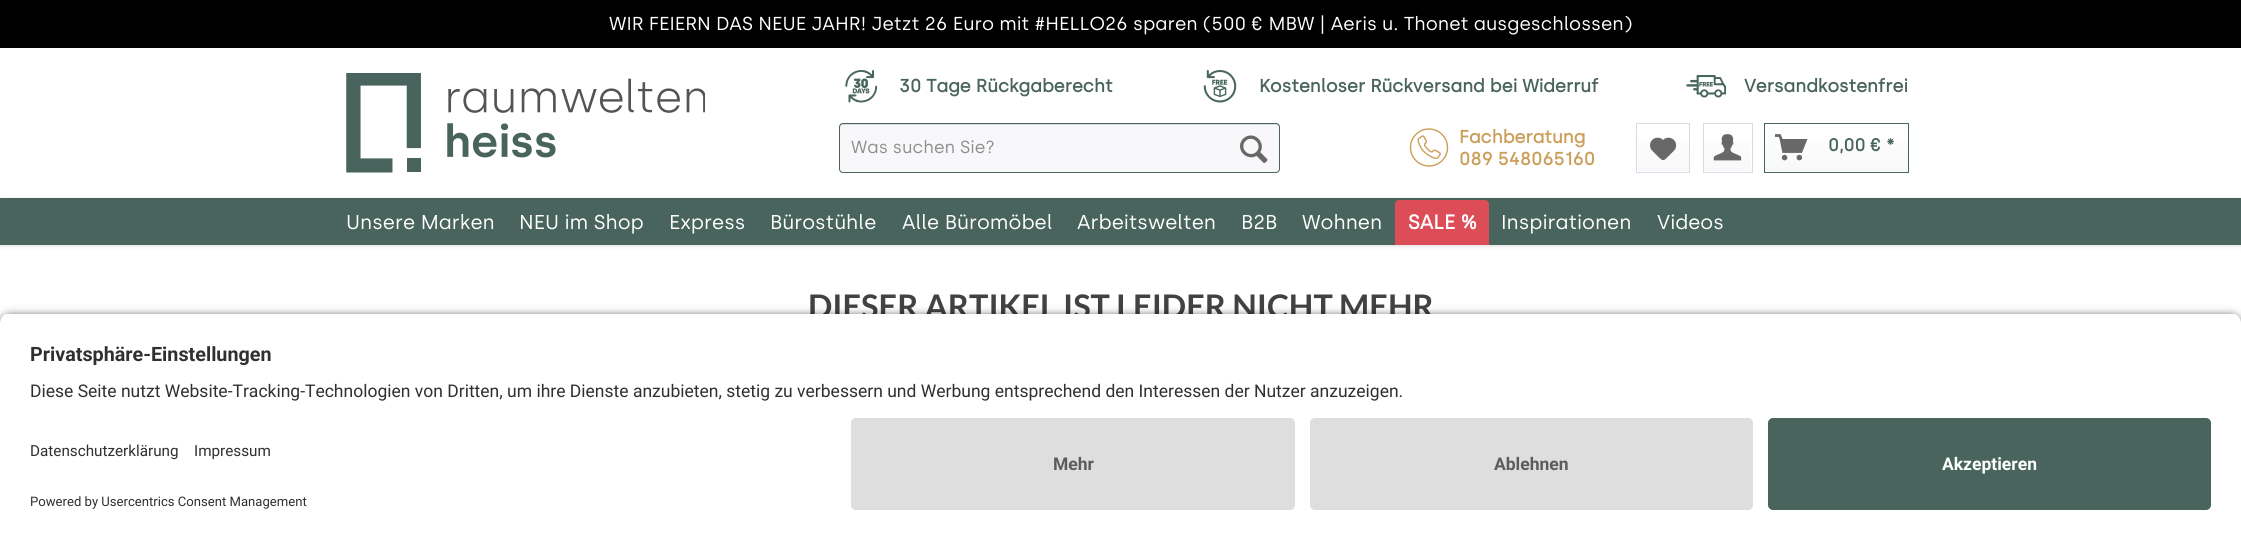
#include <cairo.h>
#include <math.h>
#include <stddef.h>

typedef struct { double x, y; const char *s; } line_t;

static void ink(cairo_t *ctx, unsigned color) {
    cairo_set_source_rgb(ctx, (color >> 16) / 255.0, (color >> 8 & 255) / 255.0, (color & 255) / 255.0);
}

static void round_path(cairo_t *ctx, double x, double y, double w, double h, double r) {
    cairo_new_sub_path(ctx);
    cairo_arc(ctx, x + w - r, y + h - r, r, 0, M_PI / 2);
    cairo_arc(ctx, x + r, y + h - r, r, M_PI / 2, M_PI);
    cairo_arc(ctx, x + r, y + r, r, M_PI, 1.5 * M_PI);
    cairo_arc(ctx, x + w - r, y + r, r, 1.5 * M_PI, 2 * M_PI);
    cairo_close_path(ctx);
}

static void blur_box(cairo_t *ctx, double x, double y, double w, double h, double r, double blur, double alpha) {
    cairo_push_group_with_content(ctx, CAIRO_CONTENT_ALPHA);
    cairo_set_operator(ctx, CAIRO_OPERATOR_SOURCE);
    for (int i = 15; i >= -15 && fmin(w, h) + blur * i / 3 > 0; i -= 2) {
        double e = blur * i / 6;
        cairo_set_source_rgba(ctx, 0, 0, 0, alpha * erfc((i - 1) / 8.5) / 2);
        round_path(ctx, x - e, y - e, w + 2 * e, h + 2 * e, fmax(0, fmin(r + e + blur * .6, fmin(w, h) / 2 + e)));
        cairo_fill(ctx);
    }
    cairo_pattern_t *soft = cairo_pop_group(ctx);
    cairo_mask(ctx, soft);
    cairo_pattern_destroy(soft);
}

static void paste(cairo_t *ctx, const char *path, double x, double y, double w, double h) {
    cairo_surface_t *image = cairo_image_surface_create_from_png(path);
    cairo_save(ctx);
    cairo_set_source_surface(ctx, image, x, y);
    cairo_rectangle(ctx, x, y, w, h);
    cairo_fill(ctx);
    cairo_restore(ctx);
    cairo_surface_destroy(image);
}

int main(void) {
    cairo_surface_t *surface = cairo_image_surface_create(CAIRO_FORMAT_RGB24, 2241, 540);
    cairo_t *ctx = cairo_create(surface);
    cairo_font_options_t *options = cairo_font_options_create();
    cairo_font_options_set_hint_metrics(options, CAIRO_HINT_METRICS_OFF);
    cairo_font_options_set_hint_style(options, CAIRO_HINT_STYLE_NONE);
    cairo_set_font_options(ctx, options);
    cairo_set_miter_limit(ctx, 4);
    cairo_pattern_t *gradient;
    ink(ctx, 0xFFFFFF);
    cairo_paint(ctx);
    ink(ctx, 0x000000);
    cairo_rectangle(ctx, 0, 0, 2241, 48);
    cairo_fill(ctx);
    cairo_select_font_face(ctx, "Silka", CAIRO_FONT_SLANT_NORMAL, CAIRO_FONT_WEIGHT_NORMAL);
    cairo_set_font_size(ctx, 18.75);
    ink(ctx, 0xFFFFFF);
    cairo_move_to(ctx, 609, 30);
    cairo_show_text(ctx, "WIR FEIERN DAS NEUE JAHR! Jetzt 26 Euro mit #HELLO26 sparen (500 € MBW | Aeris u. Thonet ausgeschlossen)");
    paste(ctx, "media/1.png", 845, 70, 33, 33);
    cairo_select_font_face(ctx, "Silka", CAIRO_FONT_SLANT_NORMAL, CAIRO_FONT_WEIGHT_BOLD);
    cairo_set_font_size(ctx, 18);
    ink(ctx, 0x48645C);
    cairo_move_to(ctx, 899, 92);
    cairo_show_text(ctx, "30 Tage Rückgaberecht");
    paste(ctx, "media/2.png", 1203, 70, 34, 33);
    cairo_move_to(ctx, 1259, 92);
    cairo_show_text(ctx, "Kostenloser Rückversand bei Widerruf");
    paste(ctx, "media/3.png", 1686, 75, 40, 23);
    cairo_move_to(ctx, 1744, 92);
    cairo_show_text(ctx, "Versandkostenfrei");
    paste(ctx, "media/4.png", 346, 73, 359, 100);
    ink(ctx, 0xF8F8FA);
    round_path(ctx, 839, 123, 441, 50, 4);
    cairo_fill(ctx);
    ink(ctx, 0xDADAE5);
    cairo_new_path(ctx);
    cairo_move_to(ctx, 842, 125);
    cairo_line_to(ctx, 1276, 125);
    cairo_curve_to(ctx, 1278, 125, 1279, 126, 1279, 128);
    cairo_curve_to(ctx, 1279, 126, 1279, 124, 1276, 124);
    cairo_line_to(ctx, 842, 124);
    cairo_line_to(ctx, 840, 125);
    cairo_line_to(ctx, 840, 128);
    cairo_curve_to(ctx, 840, 126, 841, 125, 842, 125);
    cairo_close_path(ctx);
    cairo_fill(ctx);
    round_path(ctx, 839.5, 123.5, 440, 49, 3.5);
    ink(ctx, 0x48645C);
    cairo_set_line_width(ctx, 1);
    cairo_stroke(ctx);
    cairo_select_font_face(ctx, "Silka", CAIRO_FONT_SLANT_NORMAL, CAIRO_FONT_WEIGHT_NORMAL);
    cairo_set_font_size(ctx, 17.5);
    ink(ctx, 0x8E8E8F);
    cairo_move_to(ctx, 851, 153);
    cairo_show_text(ctx, "Was suchen Sie?");
    paste(ctx, "media/5.png", 1240, 135, 28, 28);
    paste(ctx, "media/6.png", 1409, 128, 40, 39);
    cairo_select_font_face(ctx, "Silka", CAIRO_FONT_SLANT_NORMAL, CAIRO_FONT_WEIGHT_BOLD);
    cairo_set_font_size(ctx, 18);
    ink(ctx, 0xCB9E59);
    cairo_move_to(ctx, 1459, 143);
    cairo_show_text(ctx, "Fachberatung");
    cairo_move_to(ctx, 1459, 165);
    cairo_show_text(ctx, "089 548065160");
    gradient = cairo_pattern_create_linear(1663, 124, 1663, 171);
    cairo_pattern_add_color_stop_rgba(gradient, 0, 1, 1, 1, 1);
    cairo_pattern_add_color_stop_rgba(gradient, 1, 0.973, 0.973, 0.98, 1);
    cairo_set_source(ctx, gradient);
    cairo_pattern_destroy(gradient);
    cairo_rectangle(ctx, 1638, 141, 51, 30);
    cairo_fill(ctx);
    cairo_rectangle(ctx, 1636.5, 123.5, 53, 49);
    ink(ctx, 0xDADAE5);
    cairo_stroke(ctx);
    paste(ctx, "media/7.png", 1650, 137, 27, 24);
    gradient = cairo_pattern_create_linear(1728, 124, 1728, 171);
    cairo_pattern_add_color_stop_rgba(gradient, 0, 1, 1, 1, 1);
    cairo_pattern_add_color_stop_rgba(gradient, 1, 0.973, 0.973, 0.98, 1);
    cairo_set_source(ctx, gradient);
    cairo_pattern_destroy(gradient);
    cairo_rectangle(ctx, 1704, 141, 47, 30);
    cairo_fill(ctx);
    cairo_rectangle(ctx, 1703.5, 123.5, 49, 49);
    ink(ctx, 0xDADAE5);
    cairo_stroke(ctx);
    paste(ctx, "media/8.png", 1713, 134, 29, 27);
    gradient = cairo_pattern_create_linear(1836, 124, 1836, 171);
    cairo_pattern_add_color_stop_rgba(gradient, 0, 1, 1, 1, 1);
    cairo_pattern_add_color_stop_rgba(gradient, 1, 0.973, 0.973, 0.98, 1);
    cairo_set_source(ctx, gradient);
    cairo_pattern_destroy(gradient);
    cairo_rectangle(ctx, 1765, 141, 143, 30);
    cairo_fill(ctx);
    cairo_rectangle(ctx, 1764.5, 123.5, 144, 49);
    ink(ctx, 0x48645C);
    cairo_stroke(ctx);
    paste(ctx, "media/9.png", 1775, 134, 33, 27);
    cairo_set_font_size(ctx, 17.5);
    cairo_move_to(ctx, 1828, 151);
    cairo_show_text(ctx, "0,00 € *");
    ink(ctx, 0x000000);
    blur_box(ctx, 0, 199, 2241, 47, 0, 2, 0.15);
    ink(ctx, 0x48645C);
    cairo_rectangle(ctx, 0, 198, 2241, 47);
    cairo_fill(ctx);
    cairo_select_font_face(ctx, "Silka", CAIRO_FONT_SLANT_NORMAL, CAIRO_FONT_WEIGHT_NORMAL);
    cairo_set_font_size(ctx, 20);
    ink(ctx, 0xFFFFFF);
    {
        static const line_t items[] = {
            {346, 229, "Unsere Marken"},
            {519, 229, "NEU im Shop"},
            {669, 229, "Express"},
            {770, 229, "Bürostühle"},
            {902, 229, "Alle Büromöbel"},
            {1077, 229, "Arbeitswelten"},
            {1241, 229, "B2B"},
            {1302, 229, "Wohnen"},
        };
        for (size_t i = 0; i < sizeof items / sizeof *items; i++) {
            cairo_move_to(ctx, items[i].x, items[i].y);
            cairo_show_text(ctx, items[i].s);
        }
    }
    ink(ctx, 0xDD4D58);
    cairo_new_path(ctx);
    cairo_move_to(ctx, 1399, 200);
    cairo_line_to(ctx, 1485, 200);
    cairo_curve_to(ctx, 1487, 200, 1489, 202, 1489, 204);
    cairo_line_to(ctx, 1489, 245);
    cairo_line_to(ctx, 1395, 245);
    cairo_line_to(ctx, 1395, 204);
    cairo_curve_to(ctx, 1395, 202, 1397, 200, 1399, 200);
    cairo_close_path(ctx);
    cairo_fill(ctx);
    cairo_select_font_face(ctx, "Silka", CAIRO_FONT_SLANT_NORMAL, CAIRO_FONT_WEIGHT_BOLD);
    ink(ctx, 0xFFFFFF);
    cairo_move_to(ctx, 1408, 229);
    cairo_show_text(ctx, "SALE %");
    cairo_select_font_face(ctx, "Silka", CAIRO_FONT_SLANT_NORMAL, CAIRO_FONT_WEIGHT_NORMAL);
    cairo_move_to(ctx, 1501, 229);
    cairo_show_text(ctx, "Inspirationen");
    cairo_move_to(ctx, 1657, 229);
    cairo_show_text(ctx, "Videos");
    cairo_select_font_face(ctx, "Lato", CAIRO_FONT_SLANT_NORMAL, CAIRO_FONT_WEIGHT_BOLD);
    cairo_set_font_size(ctx, 32.5);
    ink(ctx, 0x424243);
    cairo_move_to(ctx, 808, 318);
    cairo_show_text(ctx, "DIESER ARTIKEL IST LEIDER NICHT MEHR");
    ink(ctx, 0x000000);
    blur_box(ctx, 0, 316, 2241, 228, 10, 4.5, 0.8);
    cairo_save(ctx);
    cairo_new_path(ctx);
    cairo_move_to(ctx, 10, 313);
    cairo_line_to(ctx, 2231, 313);
    cairo_curve_to(ctx, 2236.5, 313, 2241, 317.5, 2241, 323);
    cairo_line_to(ctx, 2241, 408);
    cairo_line_to(ctx, 0, 408);
    cairo_line_to(ctx, 0, 323);
    cairo_curve_to(ctx, 0, 317.5, 4.5, 313, 10, 313);
    cairo_close_path(ctx);
    cairo_clip(ctx);
    ink(ctx, 0xFFFFFF);
    cairo_rectangle(ctx, 0, 314, 2241, 94);
    cairo_fill(ctx);
    cairo_restore(ctx);
    cairo_select_font_face(ctx, "Roboto", CAIRO_FONT_SLANT_NORMAL, CAIRO_FONT_WEIGHT_BOLD);
    cairo_set_font_size(ctx, 19.75);
    ink(ctx, 0x303030);
    cairo_move_to(ctx, 30, 361);
    cairo_show_text(ctx, "Privatsphäre-Einstellungen");
    cairo_select_font_face(ctx, "Roboto", CAIRO_FONT_SLANT_NORMAL, CAIRO_FONT_WEIGHT_NORMAL);
    cairo_set_font_size(ctx, 17.5);
    cairo_move_to(ctx, 30, 397);
    cairo_show_text(ctx, "Diese Seite nutzt Website-Tracking-Technologien von Dritten, um ihre Dienste anzubieten, stetig zu verbessern und Werbung entsprechend den Interessen der Nutzer anzuzeigen.");
    ink(ctx, 0xFFFFFF);
    cairo_rectangle(ctx, 0, 408, 2241, 132);
    cairo_fill(ctx);
    cairo_set_font_size(ctx, 15.25);
    ink(ctx, 0x303030);
    cairo_move_to(ctx, 30, 456);
    cairo_show_text(ctx, "Datenschutzerklärung");
    cairo_move_to(ctx, 194, 456);
    cairo_show_text(ctx, "Impressum");
    cairo_set_font_size(ctx, 13.1);
    cairo_move_to(ctx, 30, 506);
    cairo_show_text(ctx, "Powered by Usercentrics Consent Management");
    ink(ctx, 0xDEDEDE);
    round_path(ctx, 851, 418, 444, 92, 5);
    cairo_fill(ctx);
    cairo_select_font_face(ctx, "Roboto", CAIRO_FONT_SLANT_NORMAL, CAIRO_FONT_WEIGHT_BOLD);
    cairo_set_font_size(ctx, 17.5);
    ink(ctx, 0x5C5C5C);
    cairo_move_to(ctx, 1053, 470);
    cairo_show_text(ctx, "Mehr");
    ink(ctx, 0xDEDEDE);
    round_path(ctx, 1310, 418, 443, 92, 5);
    cairo_fill(ctx);
    ink(ctx, 0x5C5C5C);
    cairo_move_to(ctx, 1494, 470);
    cairo_show_text(ctx, "Ablehnen");
    ink(ctx, 0x48645C);
    round_path(ctx, 1768, 418, 443, 92, 5);
    cairo_fill(ctx);
    ink(ctx, 0xFFFFFF);
    cairo_move_to(ctx, 1942, 470);
    cairo_show_text(ctx, "Akzeptieren");
    cairo_surface_write_to_png(surface, "image.png");
    cairo_font_options_destroy(options);
    cairo_destroy(ctx);
    cairo_surface_destroy(surface);
    return 0;
}
